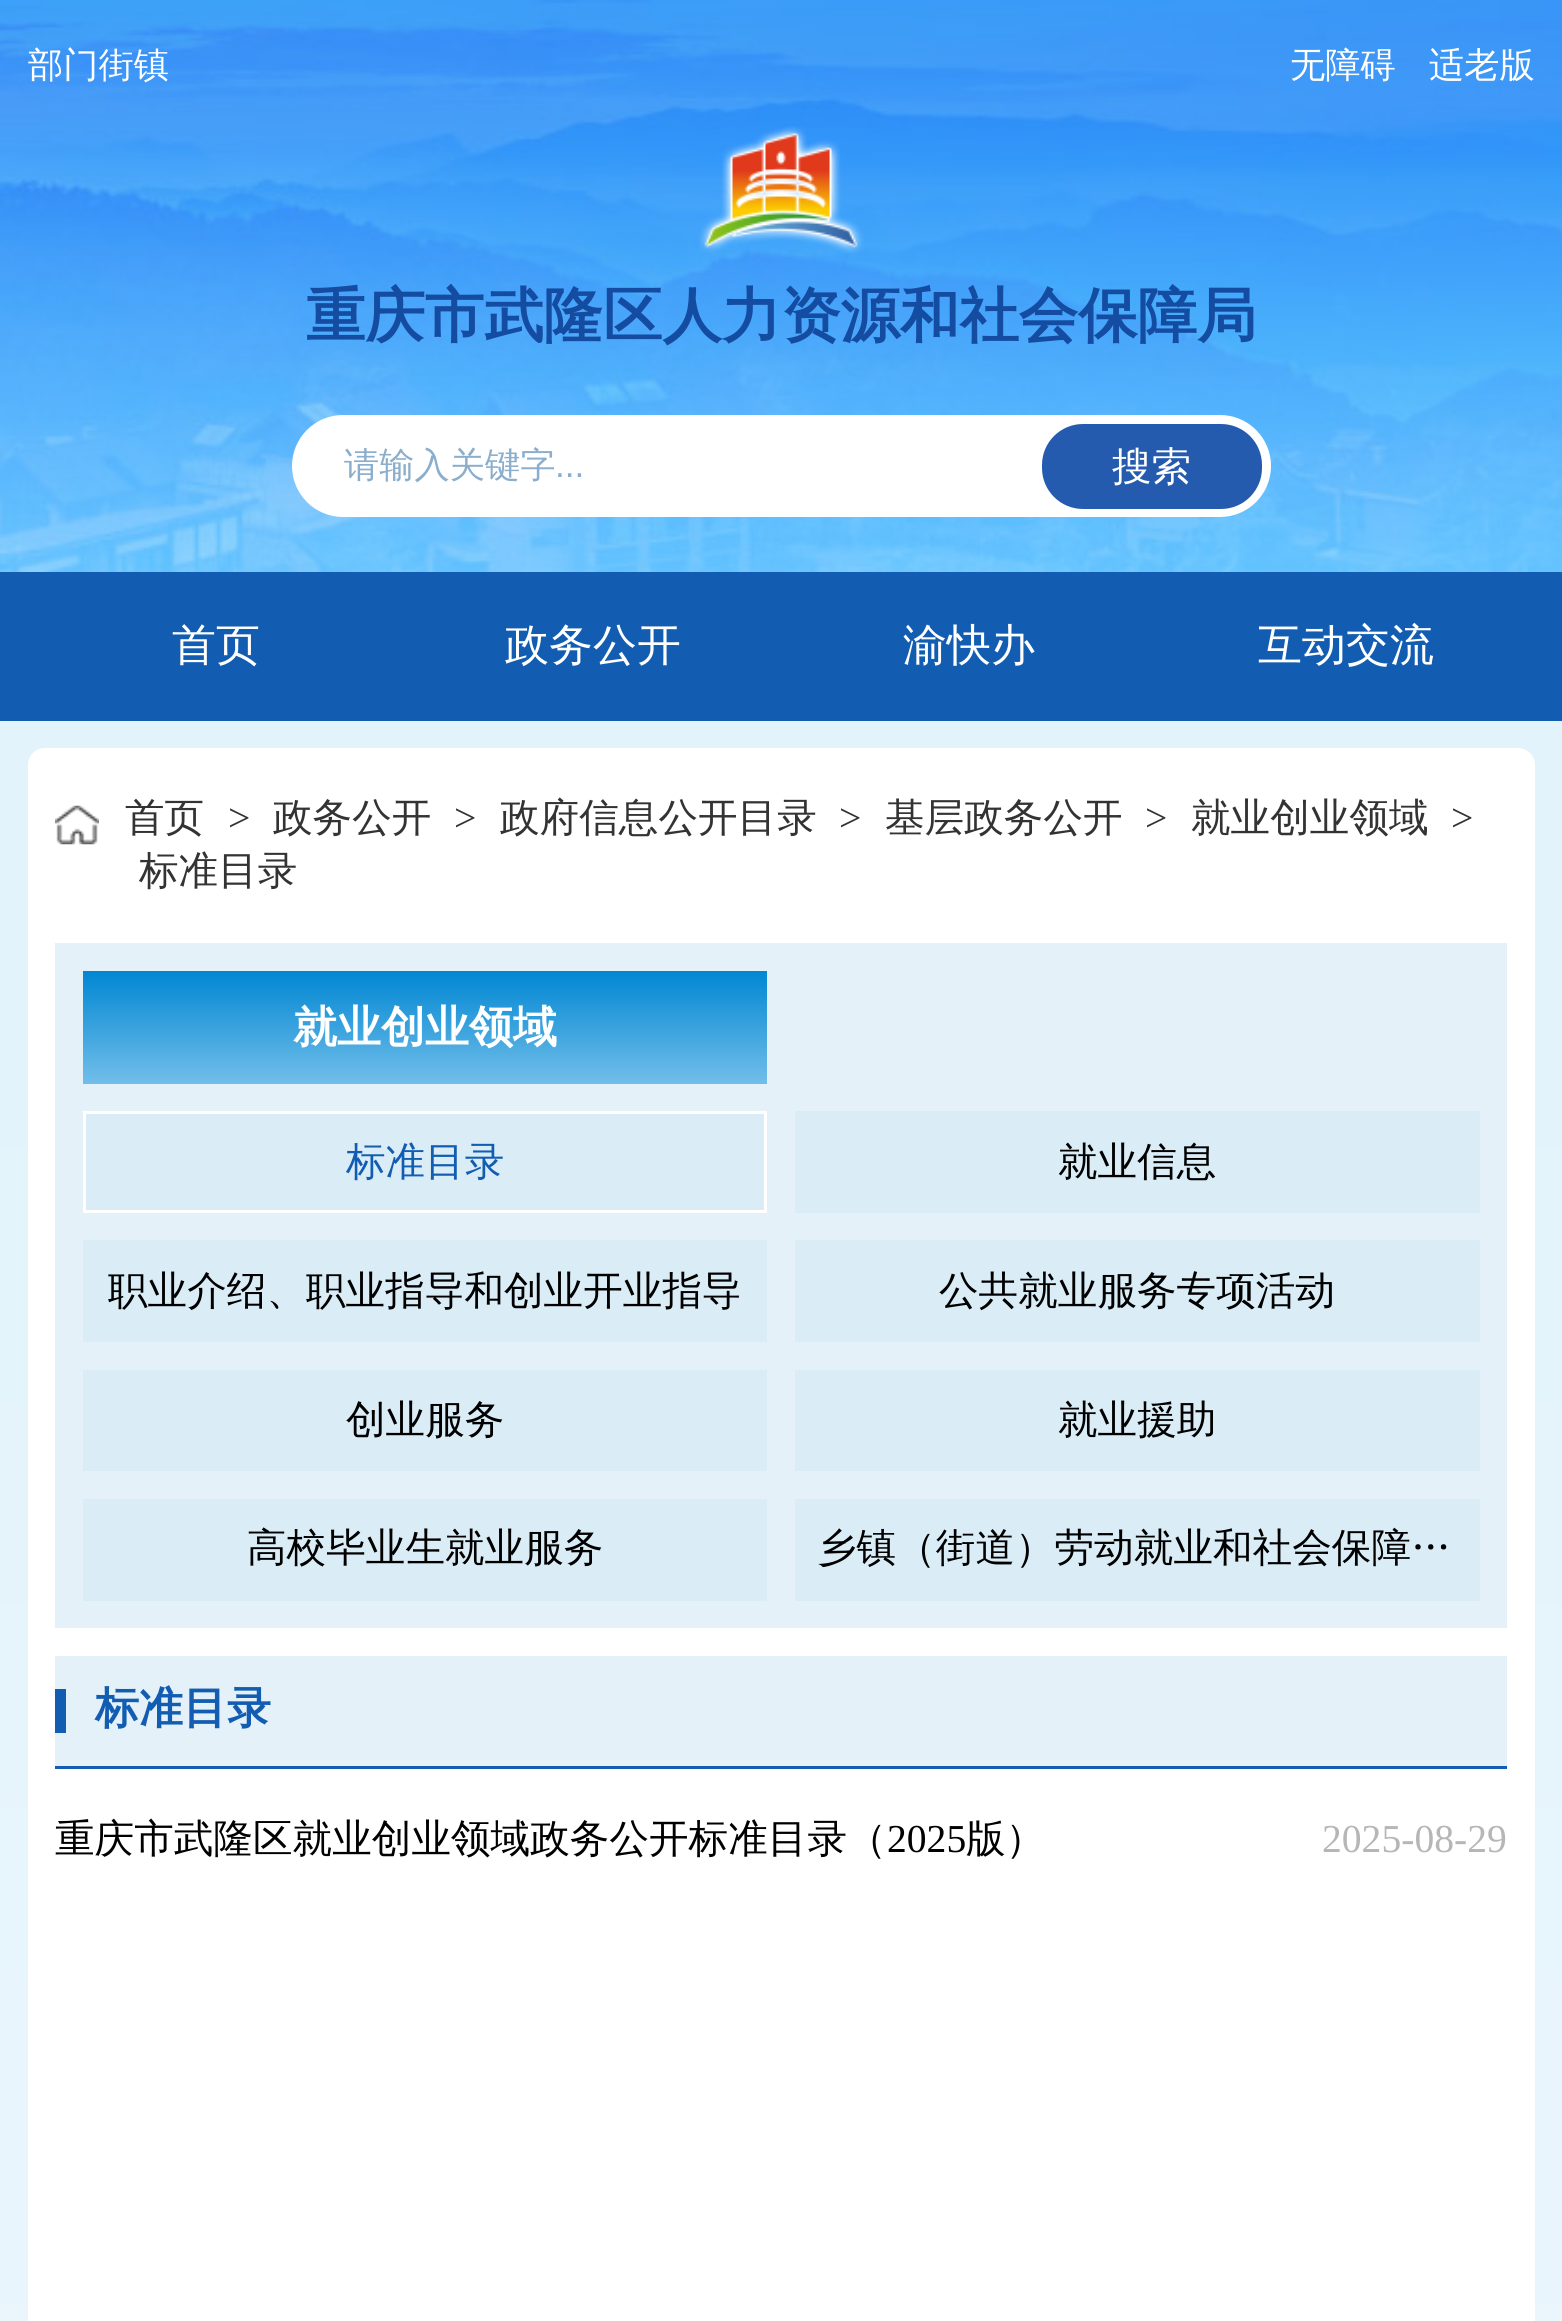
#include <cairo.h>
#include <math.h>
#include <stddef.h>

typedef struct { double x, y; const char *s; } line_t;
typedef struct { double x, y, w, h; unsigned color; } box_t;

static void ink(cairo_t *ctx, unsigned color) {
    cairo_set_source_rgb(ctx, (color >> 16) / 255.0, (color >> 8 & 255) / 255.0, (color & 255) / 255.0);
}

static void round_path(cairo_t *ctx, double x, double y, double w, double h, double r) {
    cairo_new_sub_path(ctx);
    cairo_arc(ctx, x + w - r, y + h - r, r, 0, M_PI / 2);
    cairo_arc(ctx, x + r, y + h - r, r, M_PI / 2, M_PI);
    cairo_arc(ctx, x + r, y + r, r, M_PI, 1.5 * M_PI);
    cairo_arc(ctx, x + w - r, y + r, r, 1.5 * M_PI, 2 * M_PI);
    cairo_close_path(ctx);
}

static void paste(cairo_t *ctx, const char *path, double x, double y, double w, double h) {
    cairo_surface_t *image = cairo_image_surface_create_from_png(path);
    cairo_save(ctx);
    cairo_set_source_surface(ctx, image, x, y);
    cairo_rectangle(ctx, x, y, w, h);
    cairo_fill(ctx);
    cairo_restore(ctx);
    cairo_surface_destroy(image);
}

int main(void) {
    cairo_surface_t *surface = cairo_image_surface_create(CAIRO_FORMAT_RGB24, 1562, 2321);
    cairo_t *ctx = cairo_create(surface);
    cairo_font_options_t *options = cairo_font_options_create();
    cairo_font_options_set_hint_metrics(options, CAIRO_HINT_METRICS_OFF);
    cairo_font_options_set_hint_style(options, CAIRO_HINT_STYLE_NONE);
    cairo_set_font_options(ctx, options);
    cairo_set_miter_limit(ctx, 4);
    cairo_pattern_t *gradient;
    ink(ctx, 0xFFFFFF);
    cairo_paint(ctx);
    paste(ctx, "media/1.png", 0, 0, 1562, 572);
    cairo_select_font_face(ctx, "WenQuanYi Zen Hei Medium", CAIRO_FONT_SLANT_NORMAL, CAIRO_FONT_WEIGHT_NORMAL);
    cairo_set_font_size(ctx, 35.25);
    ink(ctx, 0xFFFFFF);
    {
        static const line_t items[] = {
            {28, 77, "部门街镇"},
            {1290, 77, "无障碍"},
            {1429, 77, "适老版"},
        };
        for (size_t i = 0; i < sizeof items / sizeof *items; i++) {
            cairo_move_to(ctx, items[i].x, items[i].y);
            cairo_show_text(ctx, items[i].s);
        }
    }
    paste(ctx, "media/2.png", 699, 126, 165, 127);
    cairo_select_font_face(ctx, "WenQuanYi Zen Hei", CAIRO_FONT_SLANT_NORMAL, CAIRO_FONT_WEIGHT_BOLD);
    cairo_set_font_size(ctx, 59.4);
    ink(ctx, 0x144CA2);
    cairo_move_to(ctx, 306, 336);
    cairo_show_text(ctx, "重庆市武隆区人力资源和社会保障局");
    ink(ctx, 0xFFFFFF);
    round_path(ctx, 292, 415, 979, 102, 51);
    cairo_fill(ctx);
    cairo_select_font_face(ctx, "WenQuanYi Zen Hei Medium", CAIRO_FONT_SLANT_NORMAL, CAIRO_FONT_WEIGHT_NORMAL);
    cairo_set_font_size(ctx, 35.25);
    ink(ctx, 0x8AAECC);
    cairo_move_to(ctx, 344, 477);
    cairo_show_text(ctx, "请输入关键字");
    cairo_select_font_face(ctx, "Liberation Sans", CAIRO_FONT_SLANT_NORMAL, CAIRO_FONT_WEIGHT_NORMAL);
    cairo_move_to(ctx, 555, 477);
    cairo_show_text(ctx, "...");
    ink(ctx, 0x255BAF);
    round_path(ctx, 1042, 424, 220, 85, 41);
    cairo_fill(ctx);
    cairo_select_font_face(ctx, "WenQuanYi Zen Hei Medium", CAIRO_FONT_SLANT_NORMAL, CAIRO_FONT_WEIGHT_NORMAL);
    cairo_set_font_size(ctx, 39.6);
    ink(ctx, 0xFFFFFF);
    cairo_move_to(ctx, 1112, 480);
    cairo_show_text(ctx, "搜索");
    ink(ctx, 0x125DB2);
    cairo_rectangle(ctx, 0, 572, 1562, 149);
    cairo_fill(ctx);
    cairo_set_font_size(ctx, 44);
    ink(ctx, 0xFFFFFF);
    {
        static const line_t items[] = {
            {172, 660, "首页"},
            {505, 660, "政务公开"},
            {903, 660, "渝快办"},
            {1258, 660, "互动交流"},
        };
        for (size_t i = 0; i < sizeof items / sizeof *items; i++) {
            cairo_move_to(ctx, items[i].x, items[i].y);
            cairo_show_text(ctx, items[i].s);
        }
    }
    paste(ctx, "media/3.png", 0, 721, 1562, 1600);
    round_path(ctx, 28, 748, 1507, 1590, 17);
    cairo_fill(ctx);
    paste(ctx, "media/4.png", 55, 805, 44, 40);
    cairo_set_font_size(ctx, 39.6);
    ink(ctx, 0x333333);
    cairo_move_to(ctx, 125, 831);
    cairo_show_text(ctx, "首页");
    cairo_select_font_face(ctx, "Liberation Serif", CAIRO_FONT_SLANT_NORMAL, CAIRO_FONT_WEIGHT_NORMAL);
    cairo_move_to(ctx, 228, 831);
    cairo_show_text(ctx, ">");
    cairo_select_font_face(ctx, "WenQuanYi Zen Hei Medium", CAIRO_FONT_SLANT_NORMAL, CAIRO_FONT_WEIGHT_NORMAL);
    cairo_move_to(ctx, 273, 831);
    cairo_show_text(ctx, "政务公开");
    cairo_select_font_face(ctx, "Liberation Serif", CAIRO_FONT_SLANT_NORMAL, CAIRO_FONT_WEIGHT_NORMAL);
    cairo_move_to(ctx, 454, 831);
    cairo_show_text(ctx, ">");
    cairo_select_font_face(ctx, "WenQuanYi Zen Hei Medium", CAIRO_FONT_SLANT_NORMAL, CAIRO_FONT_WEIGHT_NORMAL);
    cairo_move_to(ctx, 500, 831);
    cairo_show_text(ctx, "政府信息公开目录");
    cairo_select_font_face(ctx, "Liberation Serif", CAIRO_FONT_SLANT_NORMAL, CAIRO_FONT_WEIGHT_NORMAL);
    cairo_move_to(ctx, 839, 831);
    cairo_show_text(ctx, ">");
    cairo_select_font_face(ctx, "WenQuanYi Zen Hei Medium", CAIRO_FONT_SLANT_NORMAL, CAIRO_FONT_WEIGHT_NORMAL);
    cairo_move_to(ctx, 885, 831);
    cairo_show_text(ctx, "基层政务公开");
    cairo_select_font_face(ctx, "Liberation Serif", CAIRO_FONT_SLANT_NORMAL, CAIRO_FONT_WEIGHT_NORMAL);
    cairo_move_to(ctx, 1145, 831);
    cairo_show_text(ctx, ">");
    cairo_select_font_face(ctx, "WenQuanYi Zen Hei Medium", CAIRO_FONT_SLANT_NORMAL, CAIRO_FONT_WEIGHT_NORMAL);
    cairo_move_to(ctx, 1191, 831);
    cairo_show_text(ctx, "就业创业领域");
    cairo_select_font_face(ctx, "Liberation Serif", CAIRO_FONT_SLANT_NORMAL, CAIRO_FONT_WEIGHT_NORMAL);
    cairo_move_to(ctx, 1451, 831);
    cairo_show_text(ctx, ">");
    cairo_select_font_face(ctx, "WenQuanYi Zen Hei Medium", CAIRO_FONT_SLANT_NORMAL, CAIRO_FONT_WEIGHT_NORMAL);
    cairo_move_to(ctx, 139, 884);
    cairo_show_text(ctx, "标准目录");
    ink(ctx, 0xE4F1F8);
    cairo_rectangle(ctx, 55, 943, 1452, 685);
    cairo_fill(ctx);
    gradient = cairo_pattern_create_linear(425, 1084, 425, 971);
    cairo_pattern_add_color_stop_rgba(gradient, 0, 0.447, 0.745, 0.914, 1);
    cairo_pattern_add_color_stop_rgba(gradient, 1, 0, 0.529, 0.827, 1);
    cairo_set_source(ctx, gradient);
    cairo_pattern_destroy(gradient);
    cairo_rectangle(ctx, 83, 971, 684, 113);
    cairo_fill(ctx);
    cairo_select_font_face(ctx, "WenQuanYi Zen Hei", CAIRO_FONT_SLANT_NORMAL, CAIRO_FONT_WEIGHT_BOLD);
    cairo_set_font_size(ctx, 44);
    ink(ctx, 0xFFFFFF);
    cairo_move_to(ctx, 293, 1042);
    cairo_show_text(ctx, "就业创业领域");
    ink(ctx, 0xDAEDF7);
    cairo_rectangle(ctx, 86, 1114, 678, 96);
    cairo_fill(ctx);
    cairo_rectangle(ctx, 84.5, 1112.5, 681, 99);
    ink(ctx, 0xFFFFFF);
    cairo_set_line_width(ctx, 3);
    cairo_stroke(ctx);
    cairo_select_font_face(ctx, "WenQuanYi Zen Hei Medium", CAIRO_FONT_SLANT_NORMAL, CAIRO_FONT_WEIGHT_NORMAL);
    cairo_set_font_size(ctx, 39.6);
    ink(ctx, 0x125DB2);
    cairo_move_to(ctx, 346, 1175);
    cairo_show_text(ctx, "标准目录");
    ink(ctx, 0xDAEDF7);
    cairo_rectangle(ctx, 795, 1111, 685, 102);
    cairo_fill(ctx);
    ink(ctx, 0x000000);
    cairo_move_to(ctx, 1058, 1175);
    cairo_show_text(ctx, "就业信息");
    ink(ctx, 0xDAEDF7);
    cairo_rectangle(ctx, 83, 1240, 684, 102);
    cairo_fill(ctx);
    ink(ctx, 0x000000);
    cairo_move_to(ctx, 108, 1304);
    cairo_show_text(ctx, "职业介绍、职业指导和创业开业指导");
    ink(ctx, 0xDAEDF7);
    cairo_rectangle(ctx, 795, 1240, 685, 102);
    cairo_fill(ctx);
    ink(ctx, 0x000000);
    cairo_move_to(ctx, 939, 1304);
    cairo_show_text(ctx, "公共就业服务专项活动");
    ink(ctx, 0xDAEDF7);
    cairo_rectangle(ctx, 83, 1370, 684, 101);
    cairo_fill(ctx);
    ink(ctx, 0x000000);
    cairo_move_to(ctx, 346, 1433);
    cairo_show_text(ctx, "创业服务");
    ink(ctx, 0xDAEDF7);
    cairo_rectangle(ctx, 795, 1370, 685, 101);
    cairo_fill(ctx);
    ink(ctx, 0x000000);
    cairo_move_to(ctx, 1058, 1433);
    cairo_show_text(ctx, "就业援助");
    ink(ctx, 0xDAEDF7);
    cairo_rectangle(ctx, 83, 1499, 684, 102);
    cairo_fill(ctx);
    ink(ctx, 0x000000);
    cairo_move_to(ctx, 247, 1561);
    cairo_show_text(ctx, "高校毕业生就业服务");
    ink(ctx, 0xDAEDF7);
    cairo_rectangle(ctx, 795, 1499, 685, 102);
    cairo_fill(ctx);
    ink(ctx, 0x000000);
    cairo_move_to(ctx, 817, 1561);
    cairo_show_text(ctx, "乡镇（街道）劳动就业和社会保障…");
    {
        static const box_t items[] = {
            {55, 1656, 1452, 110, 0xE4F1F8},
            {55, 1766, 1452, 3, 0x125DB2},
            {55, 1689, 11, 44, 0x125DB2},
        };
        for (size_t i = 0; i < sizeof items / sizeof *items; i++) {
            ink(ctx, items[i].color);
            cairo_rectangle(ctx, items[i].x, items[i].y, items[i].w, items[i].h);
            cairo_fill(ctx);
        }
    }
    cairo_select_font_face(ctx, "WenQuanYi Zen Hei", CAIRO_FONT_SLANT_NORMAL, CAIRO_FONT_WEIGHT_BOLD);
    cairo_set_font_size(ctx, 44);
    cairo_move_to(ctx, 95, 1723);
    cairo_show_text(ctx, "标准目录");
    cairo_select_font_face(ctx, "WenQuanYi Zen Hei Medium", CAIRO_FONT_SLANT_NORMAL, CAIRO_FONT_WEIGHT_NORMAL);
    cairo_set_font_size(ctx, 39.6);
    ink(ctx, 0x000000);
    cairo_move_to(ctx, 55, 1852);
    cairo_show_text(ctx, "重庆市武隆区就业创业领域政务公开标准目录（");
    cairo_select_font_face(ctx, "Liberation Serif", CAIRO_FONT_SLANT_NORMAL, CAIRO_FONT_WEIGHT_NORMAL);
    cairo_move_to(ctx, 887, 1852);
    cairo_show_text(ctx, "2025");
    cairo_select_font_face(ctx, "WenQuanYi Zen Hei Medium", CAIRO_FONT_SLANT_NORMAL, CAIRO_FONT_WEIGHT_NORMAL);
    cairo_move_to(ctx, 966, 1852);
    cairo_show_text(ctx, "版）");
    cairo_select_font_face(ctx, "Liberation Serif", CAIRO_FONT_SLANT_NORMAL, CAIRO_FONT_WEIGHT_NORMAL);
    ink(ctx, 0xB6B6B6);
    cairo_move_to(ctx, 1322, 1852);
    cairo_show_text(ctx, "2025-08-29");
    cairo_surface_write_to_png(surface, "image.png");
    cairo_font_options_destroy(options);
    cairo_destroy(ctx);
    cairo_surface_destroy(surface);
    return 0;
}
